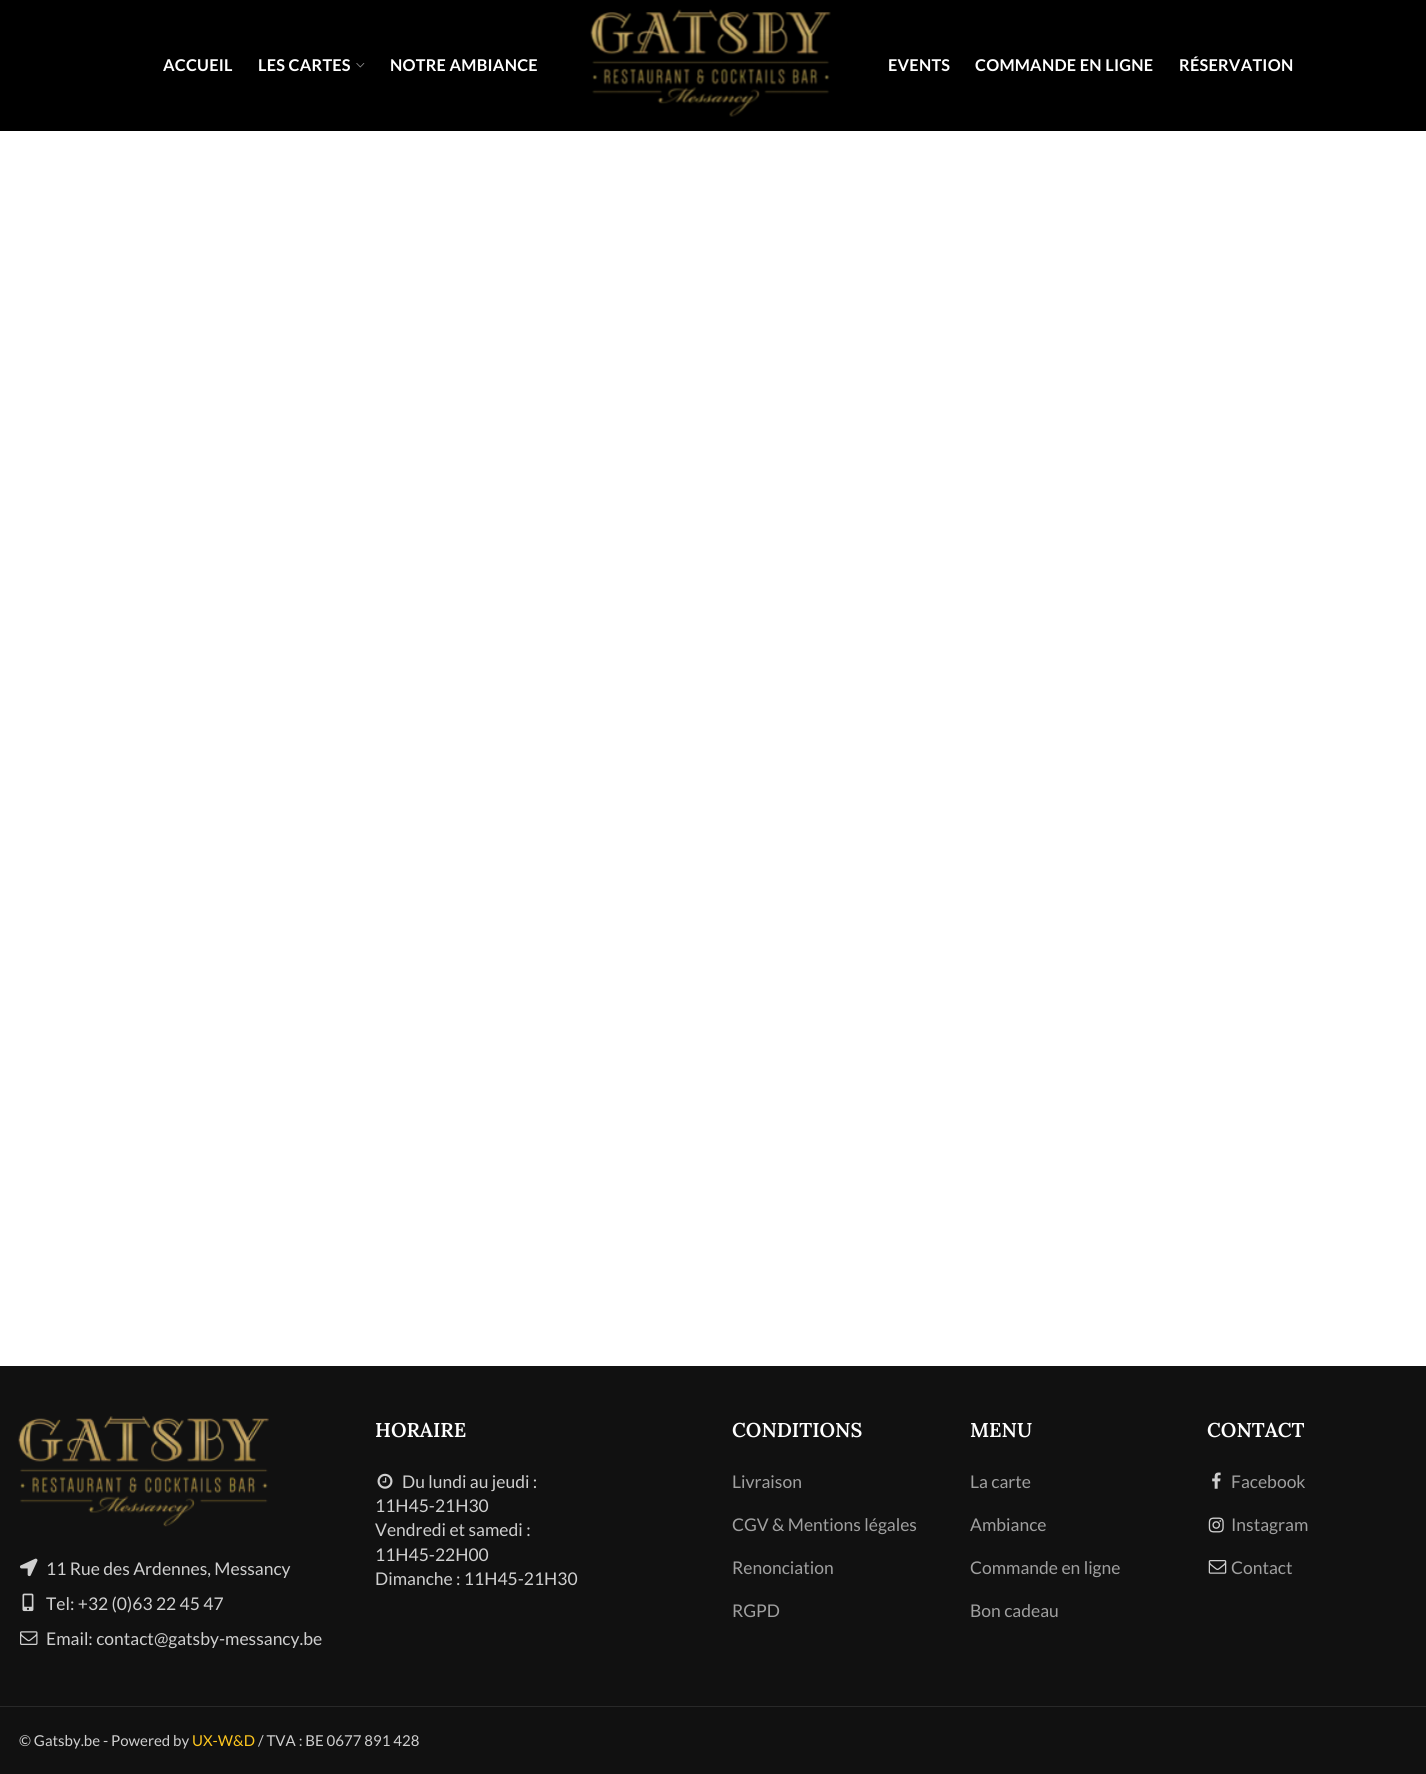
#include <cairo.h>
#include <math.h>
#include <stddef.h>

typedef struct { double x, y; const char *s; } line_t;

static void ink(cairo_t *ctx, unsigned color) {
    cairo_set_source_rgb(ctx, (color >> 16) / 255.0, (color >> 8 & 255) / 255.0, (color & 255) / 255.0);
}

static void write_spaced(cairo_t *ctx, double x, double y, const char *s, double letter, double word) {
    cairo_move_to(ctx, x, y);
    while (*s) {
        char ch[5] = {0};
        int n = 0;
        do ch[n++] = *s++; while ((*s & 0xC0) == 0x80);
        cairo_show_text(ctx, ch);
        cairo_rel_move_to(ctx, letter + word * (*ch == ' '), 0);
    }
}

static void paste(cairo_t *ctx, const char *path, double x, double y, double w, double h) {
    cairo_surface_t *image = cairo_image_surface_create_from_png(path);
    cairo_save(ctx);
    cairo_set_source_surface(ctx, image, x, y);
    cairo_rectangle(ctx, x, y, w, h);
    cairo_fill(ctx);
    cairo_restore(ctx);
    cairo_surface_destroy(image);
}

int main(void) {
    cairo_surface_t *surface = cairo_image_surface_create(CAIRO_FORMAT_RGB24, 1426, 1774);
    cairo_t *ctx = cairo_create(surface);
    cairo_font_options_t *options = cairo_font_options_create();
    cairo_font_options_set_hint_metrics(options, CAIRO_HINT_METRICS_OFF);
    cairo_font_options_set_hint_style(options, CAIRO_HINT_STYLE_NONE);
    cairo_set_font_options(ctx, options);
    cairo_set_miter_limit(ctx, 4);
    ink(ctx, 0xFFFFFF);
    cairo_paint(ctx);
    ink(ctx, 0x000000);
    cairo_rectangle(ctx, 0, 0, 1426, 131);
    cairo_fill(ctx);
    cairo_select_font_face(ctx, "Lato", CAIRO_FONT_SLANT_NORMAL, CAIRO_FONT_WEIGHT_BOLD);
    cairo_set_font_size(ctx, 16.25);
    ink(ctx, 0xFFFFFF);
    write_spaced(ctx, 163, 71, "ACCUEIL", 0.25, 0);
    write_spaced(ctx, 258, 71, "LES CARTES", 0.25, 0);
    paste(ctx, "media/1.png", 356, 63, 9, 5);
    write_spaced(ctx, 390, 71, "NOTRE AMBIANCE", 0.25, 0);
    paste(ctx, "media/2.png", 590, 9, 241, 108);
    {
        static const line_t items[] = {
            {888, 71, "EVENTS"},
            {975, 71, "COMMANDE EN LIGNE"},
            {1179, 71, "RÉSERVATION"},
        };
        for (size_t i = 0; i < sizeof items / sizeof *items; i++) {
            write_spaced(ctx, items[i].x, items[i].y, items[i].s, 0.25, 0);
        }
    }
    ink(ctx, 0x111111);
    cairo_rectangle(ctx, 0, 1366, 1426, 408);
    cairo_fill(ctx);
    paste(ctx, "media/3.png", 18, 1416, 251, 111);
    paste(ctx, "media/4.png", 20, 1558, 18, 19);
    cairo_select_font_face(ctx, "Lato", CAIRO_FONT_SLANT_NORMAL, CAIRO_FONT_WEIGHT_NORMAL);
    cairo_set_font_size(ctx, 17.5);
    ink(ctx, 0xCFCFCF);
    cairo_move_to(ctx, 46, 1575);
    cairo_show_text(ctx, "11 Rue des Ardennes, Messancy");
    paste(ctx, "media/5.png", 22, 1593, 12, 19);
    cairo_move_to(ctx, 46, 1610);
    cairo_show_text(ctx, "Tel: +32 (0)63 22 45 47");
    paste(ctx, "media/6.png", 20, 1631, 18, 14);
    cairo_move_to(ctx, 46, 1645);
    cairo_show_text(ctx, "Email: contact@gatsby-messancy.be");
    cairo_select_font_face(ctx, "Lora SemiBold", CAIRO_FONT_SLANT_NORMAL, CAIRO_FONT_WEIGHT_NORMAL);
    cairo_set_font_size(ctx, 20);
    ink(ctx, 0xFFFFFF);
    cairo_move_to(ctx, 375, 1437);
    cairo_show_text(ctx, "HORAIRE");
    paste(ctx, "media/7.png", 377, 1473, 16, 16);
    cairo_select_font_face(ctx, "Lato", CAIRO_FONT_SLANT_NORMAL, CAIRO_FONT_WEIGHT_NORMAL);
    cairo_set_font_size(ctx, 17.5);
    ink(ctx, 0xCFCFCF);
    {
        static const line_t items[] = {
            {402, 1488, "Du lundi au jeudi :"},
            {375, 1512, "11H45-21H30"},
            {375, 1536, "Vendredi et samedi :"},
            {375, 1561, "11H45-22H00"},
            {375, 1585, "Dimanche : 11H45-21H30"},
        };
        for (size_t i = 0; i < sizeof items / sizeof *items; i++) {
            cairo_move_to(ctx, items[i].x, items[i].y);
            cairo_show_text(ctx, items[i].s);
        }
    }
    cairo_select_font_face(ctx, "Lora SemiBold", CAIRO_FONT_SLANT_NORMAL, CAIRO_FONT_WEIGHT_NORMAL);
    cairo_set_font_size(ctx, 20);
    ink(ctx, 0xFFFFFF);
    cairo_move_to(ctx, 732, 1437);
    cairo_show_text(ctx, "CONDITIONS");
    cairo_select_font_face(ctx, "Lato", CAIRO_FONT_SLANT_NORMAL, CAIRO_FONT_WEIGHT_NORMAL);
    cairo_set_font_size(ctx, 17.5);
    ink(ctx, 0xA0A0A0);
    {
        static const line_t items[] = {
            {732, 1488, "Livraison"},
            {732, 1531, "CGV & Mentions légales"},
            {732, 1574, "Renonciation"},
            {732, 1617, "RGPD"},
        };
        for (size_t i = 0; i < sizeof items / sizeof *items; i++) {
            cairo_move_to(ctx, items[i].x, items[i].y);
            cairo_show_text(ctx, items[i].s);
        }
    }
    cairo_select_font_face(ctx, "Lora SemiBold", CAIRO_FONT_SLANT_NORMAL, CAIRO_FONT_WEIGHT_NORMAL);
    cairo_set_font_size(ctx, 20);
    ink(ctx, 0xFFFFFF);
    cairo_move_to(ctx, 970, 1437);
    cairo_show_text(ctx, "MENU");
    cairo_select_font_face(ctx, "Lato", CAIRO_FONT_SLANT_NORMAL, CAIRO_FONT_WEIGHT_NORMAL);
    cairo_set_font_size(ctx, 17.5);
    ink(ctx, 0xA0A0A0);
    {
        static const line_t items[] = {
            {970, 1488, "La carte"},
            {970, 1531, "Ambiance"},
            {970, 1574, "Commande en ligne"},
            {970, 1617, "Bon cadeau"},
        };
        for (size_t i = 0; i < sizeof items / sizeof *items; i++) {
            cairo_move_to(ctx, items[i].x, items[i].y);
            cairo_show_text(ctx, items[i].s);
        }
    }
    cairo_select_font_face(ctx, "Lora SemiBold", CAIRO_FONT_SLANT_NORMAL, CAIRO_FONT_WEIGHT_NORMAL);
    cairo_set_font_size(ctx, 20);
    ink(ctx, 0xFFFFFF);
    cairo_move_to(ctx, 1207, 1437);
    cairo_show_text(ctx, "CONTACT");
    paste(ctx, "media/8.png", 1212, 1472, 9, 17);
    cairo_select_font_face(ctx, "Lato", CAIRO_FONT_SLANT_NORMAL, CAIRO_FONT_WEIGHT_NORMAL);
    cairo_set_font_size(ctx, 17.5);
    ink(ctx, 0xA0A0A0);
    cairo_move_to(ctx, 1231, 1488);
    cairo_show_text(ctx, "Facebook");
    paste(ctx, "media/9.png", 1208, 1517, 16, 16);
    cairo_move_to(ctx, 1231, 1531);
    cairo_show_text(ctx, "Instagram");
    paste(ctx, "media/10.png", 1208, 1560, 19, 14);
    cairo_move_to(ctx, 1231, 1574);
    cairo_show_text(ctx, "Contact");
    ink(ctx, 0x292929);
    cairo_rectangle(ctx, 0, 1706, 1426, 1);
    cairo_fill(ctx);
    cairo_set_font_size(ctx, 15);
    ink(ctx, 0xCFCFCF);
    cairo_move_to(ctx, 19, 1746);
    cairo_show_text(ctx, "© Gatsby.be - Powered by");
    ink(ctx, 0xFDC61E);
    cairo_move_to(ctx, 192, 1746);
    cairo_show_text(ctx, "UX-W&D");
    ink(ctx, 0xCFCFCF);
    cairo_move_to(ctx, 258, 1746);
    cairo_show_text(ctx, "/ TVA : BE 0677 891 428");
    cairo_surface_write_to_png(surface, "image.png");
    cairo_font_options_destroy(options);
    cairo_destroy(ctx);
    cairo_surface_destroy(surface);
    return 0;
}
